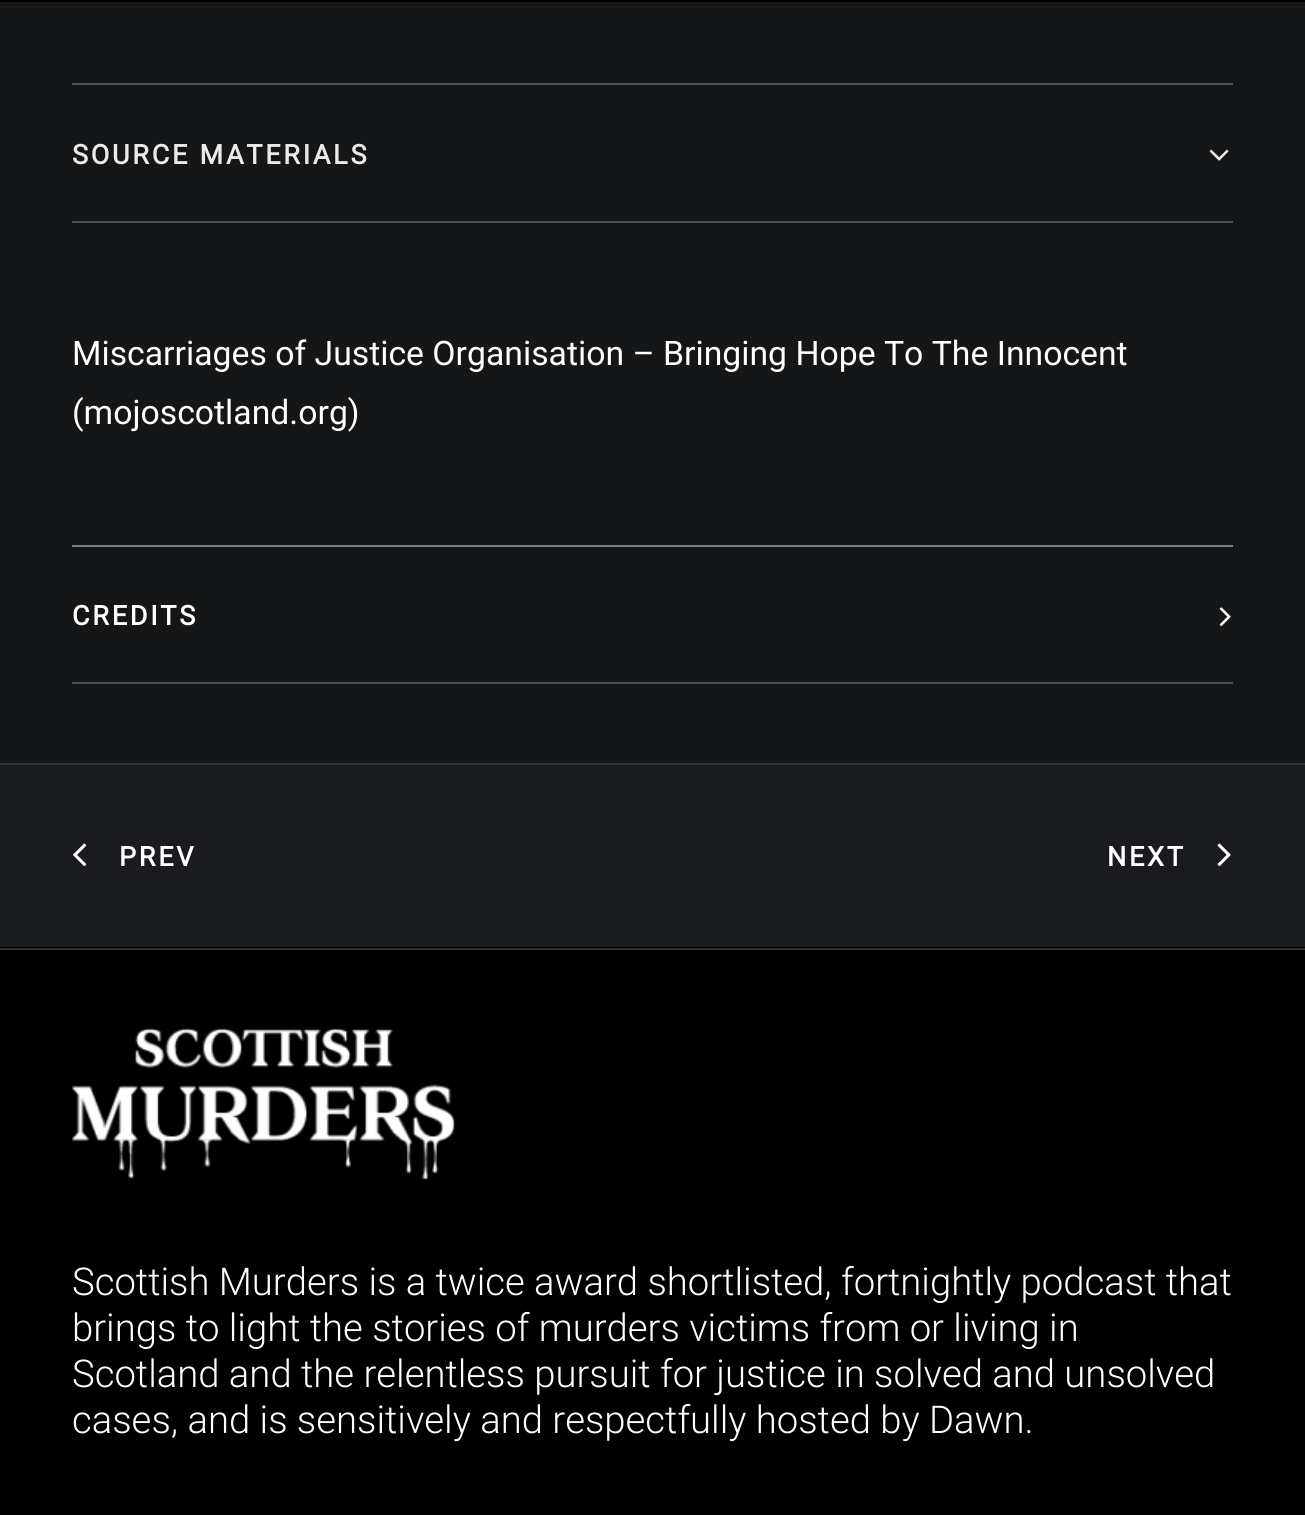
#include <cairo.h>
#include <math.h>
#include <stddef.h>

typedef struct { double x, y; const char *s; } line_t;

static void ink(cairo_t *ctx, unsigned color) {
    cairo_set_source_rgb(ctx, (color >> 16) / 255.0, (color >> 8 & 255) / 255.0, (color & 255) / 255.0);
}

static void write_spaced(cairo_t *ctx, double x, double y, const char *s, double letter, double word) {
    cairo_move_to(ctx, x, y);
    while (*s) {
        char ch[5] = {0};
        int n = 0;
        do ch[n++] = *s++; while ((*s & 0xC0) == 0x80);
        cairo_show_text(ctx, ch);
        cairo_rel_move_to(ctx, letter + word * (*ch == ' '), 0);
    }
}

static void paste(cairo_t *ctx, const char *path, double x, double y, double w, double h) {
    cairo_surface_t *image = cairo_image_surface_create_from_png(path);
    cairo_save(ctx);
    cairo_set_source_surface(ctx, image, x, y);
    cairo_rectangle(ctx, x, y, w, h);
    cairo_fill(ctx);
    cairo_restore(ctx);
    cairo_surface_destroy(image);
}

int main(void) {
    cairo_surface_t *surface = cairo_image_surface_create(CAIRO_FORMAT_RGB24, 1305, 1515);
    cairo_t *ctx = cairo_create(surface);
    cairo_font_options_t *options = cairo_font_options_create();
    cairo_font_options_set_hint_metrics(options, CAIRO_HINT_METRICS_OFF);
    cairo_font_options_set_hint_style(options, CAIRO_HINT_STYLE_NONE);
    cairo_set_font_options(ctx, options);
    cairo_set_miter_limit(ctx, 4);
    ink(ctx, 0x000000);
    cairo_paint(ctx);
    ink(ctx, 0x141618);
    cairo_rectangle(ctx, 0, 2, 1305, 761);
    cairo_fill(ctx);
    ink(ctx, 0x4F5052);
    cairo_rectangle(ctx, 72, 83, 1161, 2);
    cairo_fill(ctx);
    cairo_select_font_face(ctx, "Roboto", CAIRO_FONT_SLANT_NORMAL, CAIRO_FONT_WEIGHT_BOLD);
    cairo_set_font_size(ctx, 27);
    ink(ctx, 0xEAEAEA);
    write_spaced(ctx, 72, 164, "SOURCE MATERIALS", 2.75, 0);
    paste(ctx, "media/1.png", 1209, 149, 20, 12);
    ink(ctx, 0x4F5052);
    cairo_rectangle(ctx, 72, 221, 1161, 2);
    cairo_fill(ctx);
    cairo_select_font_face(ctx, "Roboto", CAIRO_FONT_SLANT_NORMAL, CAIRO_FONT_WEIGHT_NORMAL);
    cairo_set_font_size(ctx, 33.75);
    ink(ctx, 0xFFFFFF);
    cairo_move_to(ctx, 72, 365);
    cairo_show_text(ctx, "Miscarriages of Justice Organisation – Bringing Hope To The Innocent");
    cairo_move_to(ctx, 72, 424);
    cairo_show_text(ctx, "(mojoscotland.org)");
    ink(ctx, 0x7B7C7D);
    cairo_rectangle(ctx, 72, 545, 1161, 2);
    cairo_fill(ctx);
    ink(ctx, 0x4F5052);
    cairo_rectangle(ctx, 72, 682, 1161, 2);
    cairo_fill(ctx);
    cairo_select_font_face(ctx, "Roboto", CAIRO_FONT_SLANT_NORMAL, CAIRO_FONT_WEIGHT_BOLD);
    cairo_set_font_size(ctx, 27);
    ink(ctx, 0xFFFFFF);
    write_spaced(ctx, 72, 625, "CREDITS", 2.75, 0);
    paste(ctx, "media/2.png", 1219, 607, 12, 20);
    ink(ctx, 0x191B1E);
    cairo_rectangle(ctx, 0, 765, 1305, 182);
    cairo_fill(ctx);
    cairo_rectangle(ctx, -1, 764, 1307, 185);
    ink(ctx, 0x303133);
    cairo_stroke(ctx);
    paste(ctx, "media/3.png", 73, 843, 14, 24);
    ink(ctx, 0xFFFFFF);
    write_spaced(ctx, 119, 866, "PREV", 2.75, 0);
    write_spaced(ctx, 1107, 866, "NEXT", 2.75, 0);
    paste(ctx, "media/4.png", 1217, 843, 14, 24);
    paste(ctx, "media/5.png", 72, 1028, 383, 152);
    cairo_select_font_face(ctx, "Roboto Light", CAIRO_FONT_SLANT_NORMAL, CAIRO_FONT_WEIGHT_NORMAL);
    cairo_set_font_size(ctx, 38.25);
    {
        static const line_t items[] = {
            {72, 1295, "Scottish Murders is a twice award shortlisted, fortnightly podcast that"},
            {72, 1341, "brings to light the stories of murders victims from or living in"},
            {72, 1387, "Scotland and the relentless pursuit for justice in solved and unsolved"},
            {72, 1433, "cases, and is sensitively and respectfully hosted by Dawn."},
        };
        for (size_t i = 0; i < sizeof items / sizeof *items; i++) {
            cairo_move_to(ctx, items[i].x, items[i].y);
            cairo_show_text(ctx, items[i].s);
        }
    }
    cairo_surface_write_to_png(surface, "image.png");
    cairo_font_options_destroy(options);
    cairo_destroy(ctx);
    cairo_surface_destroy(surface);
    return 0;
}
